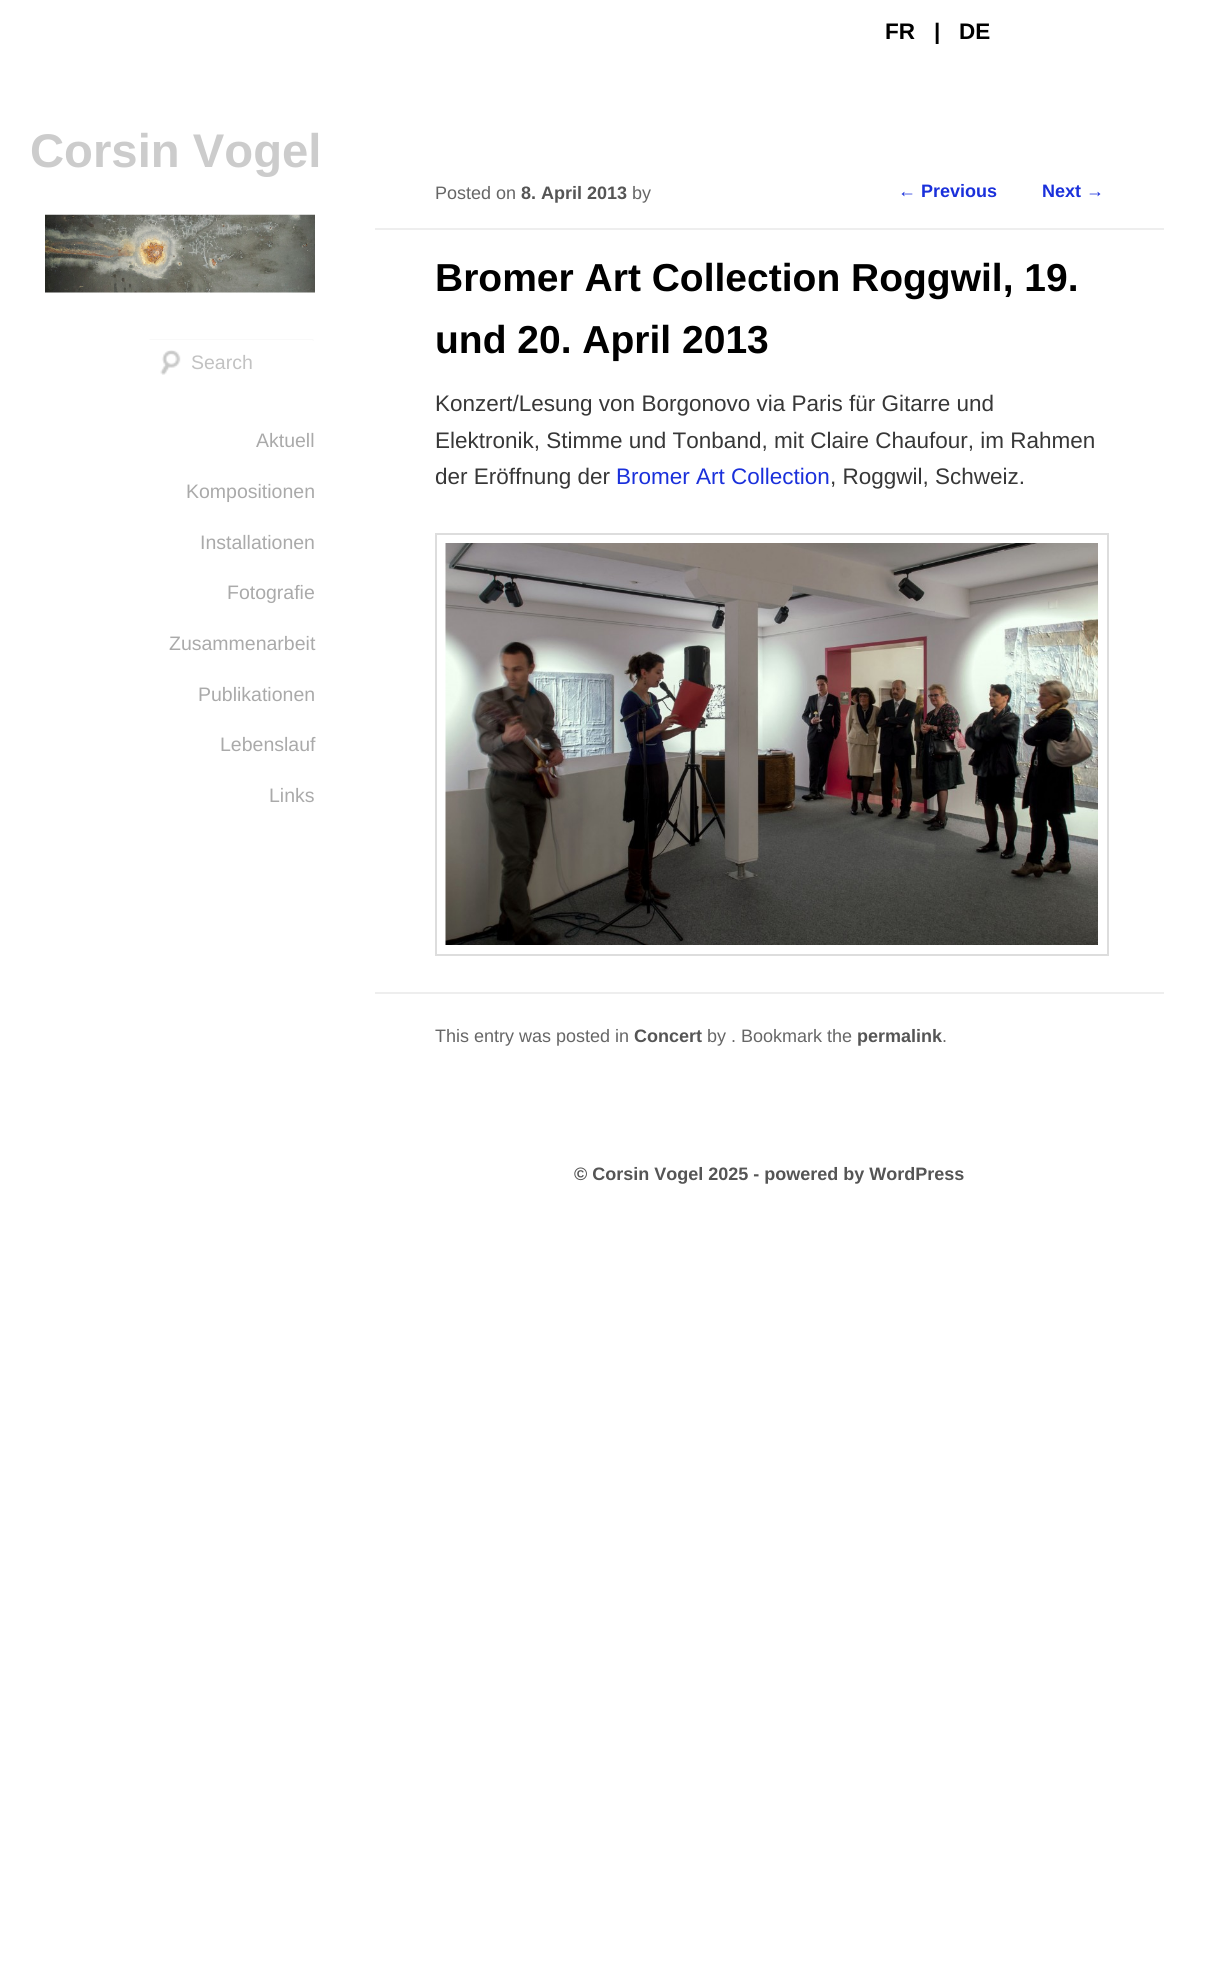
#include <cairo.h>
#include <math.h>
#include <stddef.h>

typedef struct { double x, y; const char *s; } line_t;

static void ink(cairo_t *ctx, unsigned color) {
    cairo_set_source_rgb(ctx, (color >> 16) / 255.0, (color >> 8 & 255) / 255.0, (color & 255) / 255.0);
}

static void round_path(cairo_t *ctx, double x, double y, double w, double h, double r) {
    cairo_new_sub_path(ctx);
    cairo_arc(ctx, x + w - r, y + h - r, r, 0, M_PI / 2);
    cairo_arc(ctx, x + r, y + h - r, r, M_PI / 2, M_PI);
    cairo_arc(ctx, x + r, y + r, r, M_PI, 1.5 * M_PI);
    cairo_arc(ctx, x + w - r, y + r, r, 1.5 * M_PI, 2 * M_PI);
    cairo_close_path(ctx);
}

static void paste(cairo_t *ctx, const char *path, double x, double y, double w, double h) {
    cairo_surface_t *image = cairo_image_surface_create_from_png(path);
    cairo_save(ctx);
    cairo_set_source_surface(ctx, image, x, y);
    cairo_rectangle(ctx, x, y, w, h);
    cairo_fill(ctx);
    cairo_restore(ctx);
    cairo_surface_destroy(image);
}

int main(void) {
    cairo_surface_t *surface = cairo_image_surface_create(CAIRO_FORMAT_RGB24, 1209, 1964);
    cairo_t *ctx = cairo_create(surface);
    cairo_font_options_t *options = cairo_font_options_create();
    cairo_font_options_set_hint_metrics(options, CAIRO_HINT_METRICS_OFF);
    cairo_font_options_set_hint_style(options, CAIRO_HINT_STYLE_NONE);
    cairo_set_font_options(ctx, options);
    cairo_set_miter_limit(ctx, 4);
    ink(ctx, 0xFFFFFF);
    cairo_paint(ctx);
    cairo_select_font_face(ctx, "Liberation Sans", CAIRO_FONT_SLANT_NORMAL, CAIRO_FONT_WEIGHT_BOLD);
    cairo_set_font_size(ctx, 22.5);
    ink(ctx, 0x000000);
    {
        static const line_t items[] = {
            {885, 39, "FR"},
            {934, 39, "|"},
            {959, 39, "DE"},
        };
        for (size_t i = 0; i < sizeof items / sizeof *items; i++) {
            cairo_move_to(ctx, items[i].x, items[i].y);
            cairo_show_text(ctx, items[i].s);
        }
    }
    cairo_set_font_size(ctx, 47.25);
    ink(ctx, 0xCCCCCC);
    cairo_move_to(ctx, 30, 167);
    cairo_show_text(ctx, "Corsin Vogel");
    paste(ctx, "media/1.png", 45, 214, 270, 79);
    paste(ctx, "media/2.png", 160, 350, 21, 25);
    ink(ctx, 0xF0F0F0);
    cairo_new_path(ctx);
    cairo_move_to(ctx, 150, 340);
    cairo_line_to(ctx, 312, 340);
    cairo_curve_to(ctx, 313, 340, 314, 341, 314, 342);
    cairo_curve_to(ctx, 314, 341, 314, 340, 313, 339);
    cairo_line_to(ctx, 150, 339);
    cairo_line_to(ctx, 149, 340);
    cairo_close_path(ctx);
    cairo_fill(ctx);
    round_path(ctx, 148, 339, 166, 46, 2);
    cairo_set_source_rgba(ctx, 1, 1, 1, 0.6);
    cairo_stroke(ctx);
    cairo_select_font_face(ctx, "Liberation Sans", CAIRO_FONT_SLANT_NORMAL, CAIRO_FONT_WEIGHT_NORMAL);
    cairo_set_font_size(ctx, 19.5);
    ink(ctx, 0xC2C2C2);
    cairo_move_to(ctx, 191, 369);
    cairo_show_text(ctx, "Search");
    ink(ctx, 0xAAAAAA);
    {
        static const line_t items[] = {
            {256, 447, "Aktuell"},
            {186, 498, "Kompositionen"},
            {200, 549, "Installationen"},
            {227, 599, "Fotografie"},
            {169, 650, "Zusammenarbeit"},
            {198, 701, "Publikationen"},
            {220, 751, "Lebenslauf"},
            {269, 802, "Links"},
        };
        for (size_t i = 0; i < sizeof items / sizeof *items; i++) {
            cairo_move_to(ctx, items[i].x, items[i].y);
            cairo_show_text(ctx, items[i].s);
        }
    }
    cairo_set_font_size(ctx, 18);
    ink(ctx, 0x1A30DB);
    cairo_move_to(ctx, 898, 197);
    cairo_show_text(ctx, "←");
    cairo_select_font_face(ctx, "Liberation Sans", CAIRO_FONT_SLANT_NORMAL, CAIRO_FONT_WEIGHT_BOLD);
    cairo_move_to(ctx, 921, 197);
    cairo_show_text(ctx, "Previous");
    cairo_move_to(ctx, 1042, 197);
    cairo_show_text(ctx, "Next");
    cairo_select_font_face(ctx, "Liberation Sans", CAIRO_FONT_SLANT_NORMAL, CAIRO_FONT_WEIGHT_NORMAL);
    cairo_move_to(ctx, 1086, 197);
    cairo_show_text(ctx, "→");
    ink(ctx, 0xEEEEEE);
    cairo_rectangle(ctx, 375, 228, 789, 2);
    cairo_fill(ctx);
    ink(ctx, 0x666666);
    cairo_move_to(ctx, 435, 199);
    cairo_show_text(ctx, "Posted on");
    cairo_select_font_face(ctx, "Liberation Sans", CAIRO_FONT_SLANT_NORMAL, CAIRO_FONT_WEIGHT_BOLD);
    ink(ctx, 0x555555);
    cairo_move_to(ctx, 521, 199);
    cairo_show_text(ctx, "8. April 2013");
    cairo_select_font_face(ctx, "Liberation Sans", CAIRO_FONT_SLANT_NORMAL, CAIRO_FONT_WEIGHT_NORMAL);
    ink(ctx, 0x666666);
    cairo_move_to(ctx, 632, 199);
    cairo_show_text(ctx, "by");
    cairo_select_font_face(ctx, "Liberation Sans", CAIRO_FONT_SLANT_NORMAL, CAIRO_FONT_WEIGHT_BOLD);
    cairo_set_font_size(ctx, 39);
    ink(ctx, 0x000000);
    cairo_move_to(ctx, 435, 291);
    cairo_show_text(ctx, "Bromer Art Collection Roggwil, 19.");
    cairo_move_to(ctx, 435, 353);
    cairo_show_text(ctx, "und 20. April 2013");
    ink(ctx, 0xEEEEEE);
    cairo_rectangle(ctx, 375, 992, 789, 2);
    cairo_fill(ctx);
    cairo_select_font_face(ctx, "Liberation Sans", CAIRO_FONT_SLANT_NORMAL, CAIRO_FONT_WEIGHT_NORMAL);
    cairo_set_font_size(ctx, 22.5);
    ink(ctx, 0x373737);
    {
        static const line_t items[] = {
            {435, 411, "Konzert/Lesung von Borgonovo via Paris für Gitarre und"},
            {435, 448, "Elektronik, Stimme und Tonband, mit Claire Chaufour, im Rahmen"},
            {435, 484, "der Eröffnung der"},
        };
        for (size_t i = 0; i < sizeof items / sizeof *items; i++) {
            cairo_move_to(ctx, items[i].x, items[i].y);
            cairo_show_text(ctx, items[i].s);
        }
    }
    ink(ctx, 0x1A30DB);
    cairo_move_to(ctx, 616, 484);
    cairo_show_text(ctx, "Bromer Art Collection");
    ink(ctx, 0x373737);
    cairo_move_to(ctx, 830, 484);
    cairo_show_text(ctx, ", Roggwil, Schweiz.");
    cairo_rectangle(ctx, 436, 534, 672, 421);
    ink(ctx, 0xDDDDDD);
    cairo_stroke(ctx);
    paste(ctx, "media/3.png", 445, 543, 653, 402);
    cairo_set_font_size(ctx, 18);
    ink(ctx, 0x666666);
    cairo_move_to(ctx, 435, 1042);
    cairo_show_text(ctx, "This entry was posted in");
    cairo_select_font_face(ctx, "Liberation Sans", CAIRO_FONT_SLANT_NORMAL, CAIRO_FONT_WEIGHT_BOLD);
    ink(ctx, 0x555555);
    cairo_move_to(ctx, 634, 1042);
    cairo_show_text(ctx, "Concert");
    cairo_select_font_face(ctx, "Liberation Sans", CAIRO_FONT_SLANT_NORMAL, CAIRO_FONT_WEIGHT_NORMAL);
    ink(ctx, 0x666666);
    cairo_move_to(ctx, 707, 1042);
    cairo_show_text(ctx, "by . Bookmark the");
    cairo_select_font_face(ctx, "Liberation Sans", CAIRO_FONT_SLANT_NORMAL, CAIRO_FONT_WEIGHT_BOLD);
    ink(ctx, 0x555555);
    cairo_move_to(ctx, 857, 1042);
    cairo_show_text(ctx, "permalink");
    cairo_select_font_face(ctx, "Liberation Sans", CAIRO_FONT_SLANT_NORMAL, CAIRO_FONT_WEIGHT_NORMAL);
    ink(ctx, 0x666666);
    cairo_move_to(ctx, 942, 1042);
    cairo_show_text(ctx, ".");
    cairo_select_font_face(ctx, "Liberation Sans", CAIRO_FONT_SLANT_NORMAL, CAIRO_FONT_WEIGHT_BOLD);
    ink(ctx, 0x555555);
    cairo_move_to(ctx, 574, 1180);
    cairo_show_text(ctx, "© Corsin Vogel 2025 - powered by WordPress");
    cairo_surface_write_to_png(surface, "image.png");
    cairo_font_options_destroy(options);
    cairo_destroy(ctx);
    cairo_surface_destroy(surface);
    return 0;
}
